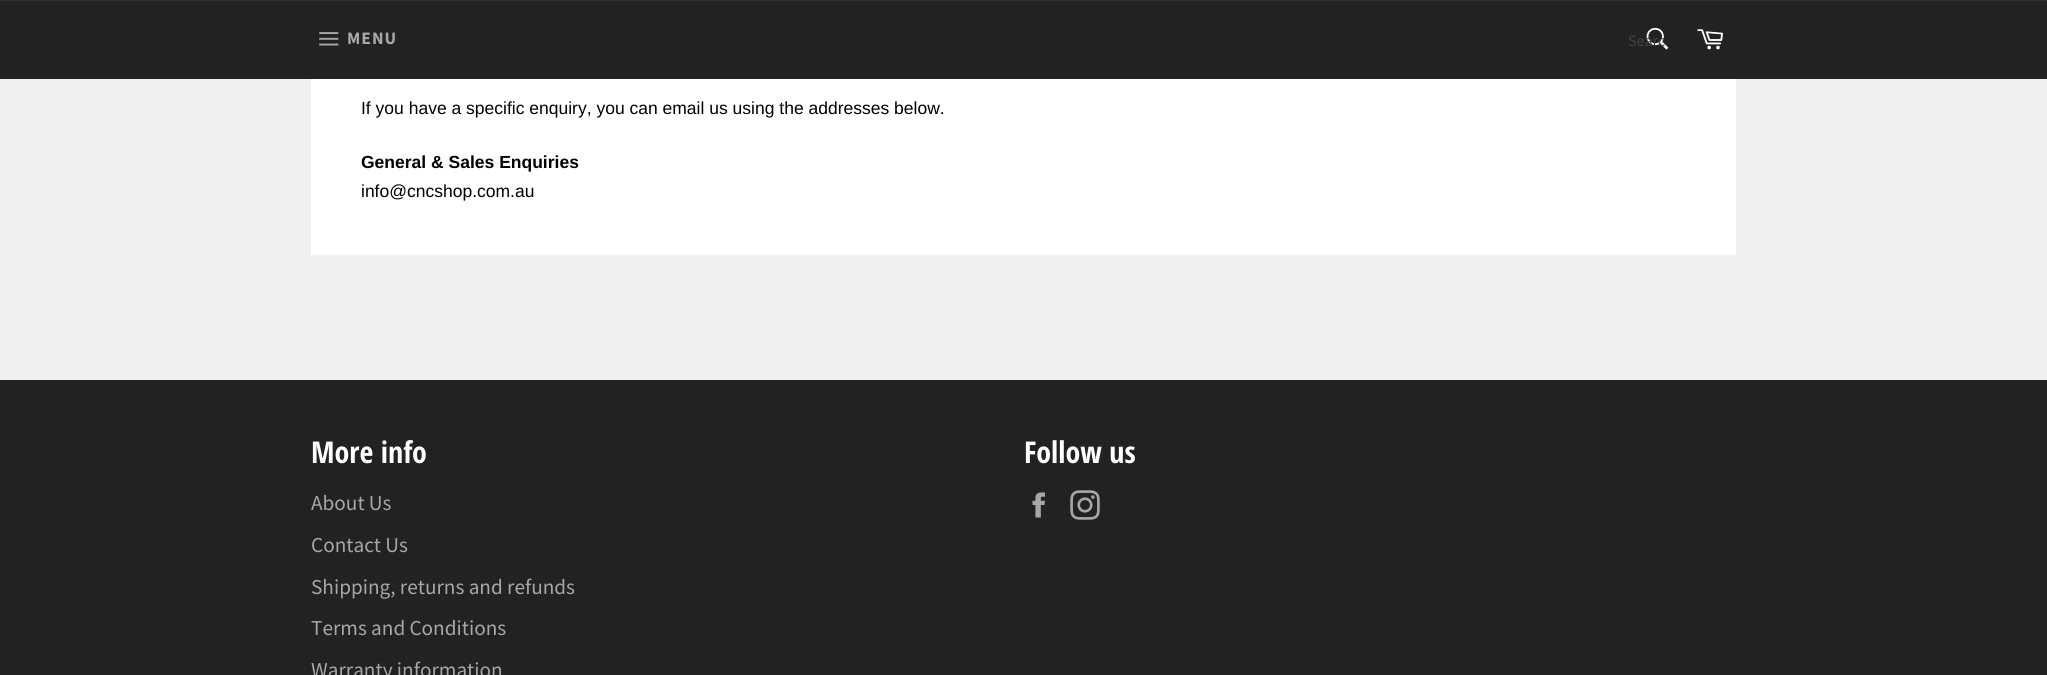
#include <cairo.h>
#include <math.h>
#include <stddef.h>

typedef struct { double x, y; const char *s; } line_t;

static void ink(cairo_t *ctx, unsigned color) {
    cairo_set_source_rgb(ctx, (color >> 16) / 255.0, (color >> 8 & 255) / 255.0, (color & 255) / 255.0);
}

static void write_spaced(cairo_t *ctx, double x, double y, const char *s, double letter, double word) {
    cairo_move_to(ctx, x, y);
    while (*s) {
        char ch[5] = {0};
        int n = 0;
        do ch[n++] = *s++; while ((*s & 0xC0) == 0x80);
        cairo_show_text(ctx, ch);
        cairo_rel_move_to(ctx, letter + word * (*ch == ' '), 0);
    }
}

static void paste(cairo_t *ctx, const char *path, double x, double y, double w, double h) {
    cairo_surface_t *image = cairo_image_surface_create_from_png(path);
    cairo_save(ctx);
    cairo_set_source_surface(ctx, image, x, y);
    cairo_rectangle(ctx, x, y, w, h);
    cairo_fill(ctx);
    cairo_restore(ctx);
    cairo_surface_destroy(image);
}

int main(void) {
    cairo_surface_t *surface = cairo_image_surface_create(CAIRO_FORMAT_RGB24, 2047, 675);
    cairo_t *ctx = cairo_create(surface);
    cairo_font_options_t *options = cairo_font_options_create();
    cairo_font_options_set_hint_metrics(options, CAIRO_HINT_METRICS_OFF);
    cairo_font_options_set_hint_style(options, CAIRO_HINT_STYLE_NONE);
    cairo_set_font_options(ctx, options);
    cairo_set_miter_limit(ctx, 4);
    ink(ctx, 0xF0F0F0);
    cairo_paint(ctx);
    ink(ctx, 0x222222);
    cairo_rectangle(ctx, 0, 1, 2047, 78);
    cairo_fill(ctx);
    ink(ctx, 0x2F2F2F);
    cairo_rectangle(ctx, 0, 0, 2047, 1);
    cairo_fill(ctx);
    paste(ctx, "media/1.png", 319, 32, 20, 14);
    cairo_select_font_face(ctx, "Source Sans Pro", CAIRO_FONT_SLANT_NORMAL, CAIRO_FONT_WEIGHT_BOLD);
    cairo_set_font_size(ctx, 17.5);
    ink(ctx, 0xA7A7A7);
    write_spaced(ctx, 347, 44, "MENU", 1, 0);
    paste(ctx, "media/2.png", 1646, 27, 23, 23);
    cairo_select_font_face(ctx, "Source Sans Pro", CAIRO_FONT_SLANT_NORMAL, CAIRO_FONT_WEIGHT_NORMAL);
    cairo_set_font_size(ctx, 16);
    ink(ctx, 0x424242);
    cairo_move_to(ctx, 1628, 46);
    cairo_show_text(ctx, "Searc");
    paste(ctx, "media/3.png", 1697, 29, 26, 21);
    ink(ctx, 0xFFFFFF);
    cairo_rectangle(ctx, 311, 79, 1425, 176);
    cairo_fill(ctx);
    cairo_select_font_face(ctx, "Liberation Sans", CAIRO_FONT_SLANT_NORMAL, CAIRO_FONT_WEIGHT_NORMAL);
    cairo_set_font_size(ctx, 17.5);
    ink(ctx, 0x000000);
    cairo_move_to(ctx, 361, 114);
    cairo_show_text(ctx, "If you have a specific enquiry, you can email us using the addresses below.");
    cairo_select_font_face(ctx, "Liberation Sans", CAIRO_FONT_SLANT_NORMAL, CAIRO_FONT_WEIGHT_BOLD);
    cairo_move_to(ctx, 361, 168);
    cairo_show_text(ctx, "General & Sales Enquiries");
    cairo_select_font_face(ctx, "Liberation Sans", CAIRO_FONT_SLANT_NORMAL, CAIRO_FONT_WEIGHT_NORMAL);
    cairo_move_to(ctx, 361, 197);
    cairo_show_text(ctx, "info@cncshop.com.au");
    ink(ctx, 0x222222);
    cairo_rectangle(ctx, 0, 380, 2047, 295);
    cairo_fill(ctx);
    cairo_select_font_face(ctx, "Open Sans Condensed", CAIRO_FONT_SLANT_NORMAL, CAIRO_FONT_WEIGHT_BOLD);
    cairo_set_font_size(ctx, 30);
    ink(ctx, 0xFFFFFF);
    cairo_move_to(ctx, 311, 463);
    cairo_show_text(ctx, "More info");
    cairo_select_font_face(ctx, "Source Sans Pro", CAIRO_FONT_SLANT_NORMAL, CAIRO_FONT_WEIGHT_NORMAL);
    cairo_set_font_size(ctx, 21.25);
    ink(ctx, 0xA7A7A7);
    {
        static const line_t items[] = {
            {311, 510, "About Us"},
            {311, 552, "Contact Us"},
            {311, 594, "Shipping, returns and refunds"},
            {311, 635, "Terms and Conditions"},
            {311, 677, "Warranty information"},
        };
        for (size_t i = 0; i < sizeof items / sizeof *items; i++) {
            cairo_move_to(ctx, items[i].x, items[i].y);
            cairo_show_text(ctx, items[i].s);
        }
    }
    cairo_select_font_face(ctx, "Open Sans Condensed", CAIRO_FONT_SLANT_NORMAL, CAIRO_FONT_WEIGHT_BOLD);
    cairo_set_font_size(ctx, 30);
    ink(ctx, 0xFFFFFF);
    cairo_move_to(ctx, 1024, 463);
    cairo_show_text(ctx, "Follow us");
    paste(ctx, "media/4.png", 1032, 492, 13, 26);
    paste(ctx, "media/5.png", 1070, 490, 30, 30);
    cairo_surface_write_to_png(surface, "image.png");
    cairo_font_options_destroy(options);
    cairo_destroy(ctx);
    cairo_surface_destroy(surface);
    return 0;
}
